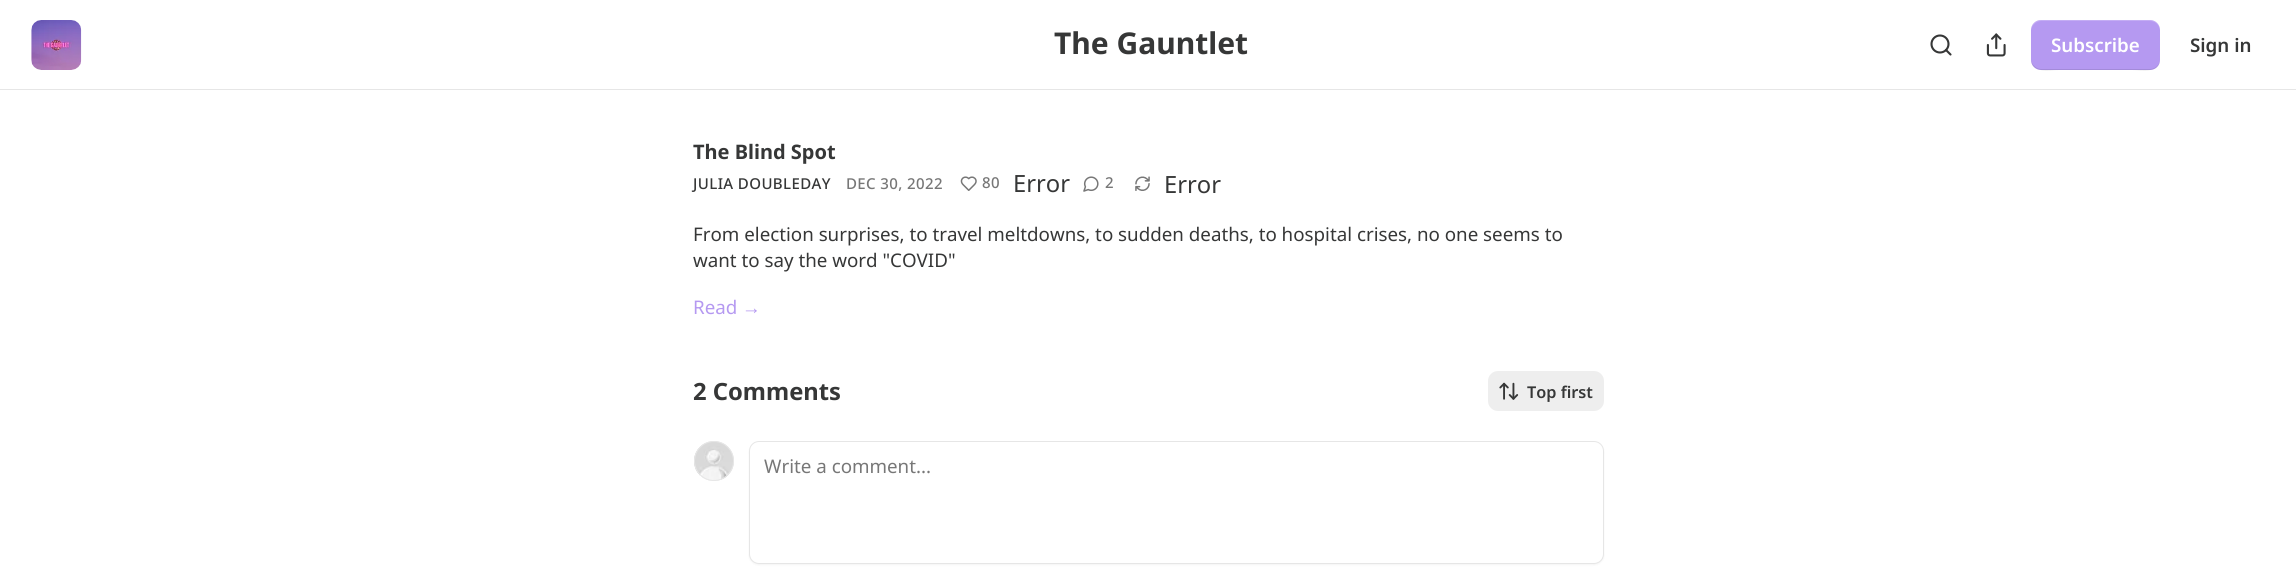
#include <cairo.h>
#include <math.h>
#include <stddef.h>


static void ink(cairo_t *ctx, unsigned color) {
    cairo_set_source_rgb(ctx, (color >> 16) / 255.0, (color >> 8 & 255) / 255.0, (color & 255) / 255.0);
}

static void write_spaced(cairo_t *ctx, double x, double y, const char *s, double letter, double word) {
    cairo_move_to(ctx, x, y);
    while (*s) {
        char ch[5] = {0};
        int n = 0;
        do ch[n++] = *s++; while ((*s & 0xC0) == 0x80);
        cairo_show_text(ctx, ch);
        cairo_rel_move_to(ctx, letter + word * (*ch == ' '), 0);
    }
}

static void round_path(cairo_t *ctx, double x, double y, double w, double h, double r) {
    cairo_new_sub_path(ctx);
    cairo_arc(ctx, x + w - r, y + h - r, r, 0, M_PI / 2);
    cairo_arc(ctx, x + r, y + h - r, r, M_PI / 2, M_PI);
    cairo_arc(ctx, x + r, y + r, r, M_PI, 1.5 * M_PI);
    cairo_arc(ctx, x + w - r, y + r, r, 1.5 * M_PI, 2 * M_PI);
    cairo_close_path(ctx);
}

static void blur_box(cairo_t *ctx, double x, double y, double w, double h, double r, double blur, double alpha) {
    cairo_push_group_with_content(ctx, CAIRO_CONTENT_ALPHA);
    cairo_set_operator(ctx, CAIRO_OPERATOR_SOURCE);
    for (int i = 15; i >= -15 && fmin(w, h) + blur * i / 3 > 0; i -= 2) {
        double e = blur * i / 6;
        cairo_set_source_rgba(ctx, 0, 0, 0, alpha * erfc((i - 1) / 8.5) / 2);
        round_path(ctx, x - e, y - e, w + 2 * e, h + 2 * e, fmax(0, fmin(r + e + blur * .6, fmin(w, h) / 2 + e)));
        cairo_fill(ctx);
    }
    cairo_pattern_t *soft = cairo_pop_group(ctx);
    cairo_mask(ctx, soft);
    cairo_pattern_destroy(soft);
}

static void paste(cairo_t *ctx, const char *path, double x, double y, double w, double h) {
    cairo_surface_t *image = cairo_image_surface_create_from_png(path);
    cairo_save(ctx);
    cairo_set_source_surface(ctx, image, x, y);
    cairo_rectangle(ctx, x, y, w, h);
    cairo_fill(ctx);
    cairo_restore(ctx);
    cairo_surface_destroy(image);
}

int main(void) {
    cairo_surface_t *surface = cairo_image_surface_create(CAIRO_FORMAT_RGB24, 2296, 585);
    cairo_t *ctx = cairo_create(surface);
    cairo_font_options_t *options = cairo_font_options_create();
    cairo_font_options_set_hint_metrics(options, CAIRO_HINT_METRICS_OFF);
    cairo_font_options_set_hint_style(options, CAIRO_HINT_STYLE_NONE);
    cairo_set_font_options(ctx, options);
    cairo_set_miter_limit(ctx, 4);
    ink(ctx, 0xFFFFFF);
    cairo_paint(ctx);
    ink(ctx, 0xE6E6E6);
    cairo_rectangle(ctx, 0, 89, 2296, 1);
    cairo_fill(ctx);
    paste(ctx, "media/1.png", 31, 20, 51, 50);
    cairo_select_font_face(ctx, "Noto Sans", CAIRO_FONT_SLANT_NORMAL, CAIRO_FONT_WEIGHT_BOLD);
    cairo_set_font_size(ctx, 30);
    ink(ctx, 0x363737);
    cairo_move_to(ctx, 1054, 54);
    cairo_show_text(ctx, "The Gauntlet");
    cairo_new_path(ctx);
    cairo_arc(ctx, 1940, 44, 8.5, 0, 2 * M_PI);
    cairo_set_line_width(ctx, 2.1);
    cairo_stroke(ctx);
    cairo_new_path(ctx);
    cairo_move_to(ctx, 1950.5, 54.5);
    cairo_line_to(ctx, 1946, 50);
    cairo_set_line_cap(ctx, CAIRO_LINE_CAP_ROUND);
    cairo_set_line_join(ctx, CAIRO_LINE_JOIN_ROUND);
    cairo_stroke(ctx);
    paste(ctx, "media/2.png", 1986, 33, 20, 24);
    ink(ctx, 0xB599F1);
    round_path(ctx, 2031, 20, 129, 50, 10);
    cairo_fill(ctx);
    cairo_set_source_rgba(ctx, 0, 0, 0, 0.1);
    cairo_new_path(ctx);
    cairo_move_to(ctx, 2031, 59);
    cairo_curve_to(ctx, 2031, 74, 2049, 70, 2059, 70);
    cairo_line_to(ctx, 2132, 70);
    cairo_curve_to(ctx, 2142, 70, 2160, 74, 2160, 59);
    cairo_curve_to(ctx, 2160, 64, 2156, 69, 2150, 69);
    cairo_line_to(ctx, 2041, 69);
    cairo_curve_to(ctx, 2036, 69, 2031, 64, 2031, 59);
    cairo_close_path(ctx);
    cairo_fill(ctx);
    cairo_set_source_rgba(ctx, 1, 1, 1, 0.2);
    cairo_new_path(ctx);
    cairo_move_to(ctx, 2041, 21);
    cairo_line_to(ctx, 2150, 21);
    cairo_curve_to(ctx, 2156, 21, 2160, 26, 2160, 31);
    cairo_curve_to(ctx, 2160, 16, 2142, 20, 2132, 20);
    cairo_line_to(ctx, 2059, 20);
    cairo_curve_to(ctx, 2049, 20, 2031, 16, 2031, 31);
    cairo_curve_to(ctx, 2031, 26, 2036, 21, 2041, 21);
    cairo_close_path(ctx);
    cairo_fill(ctx);
    cairo_select_font_face(ctx, "Noto Sans SemiBold", CAIRO_FONT_SLANT_NORMAL, CAIRO_FONT_WEIGHT_NORMAL);
    cairo_set_font_size(ctx, 18.75);
    ink(ctx, 0xFFFFFF);
    cairo_move_to(ctx, 2051, 52);
    cairo_show_text(ctx, "Subscribe");
    ink(ctx, 0x363737);
    cairo_move_to(ctx, 2190, 52);
    cairo_show_text(ctx, "Sign in");
    cairo_select_font_face(ctx, "Noto Sans", CAIRO_FONT_SLANT_NORMAL, CAIRO_FONT_WEIGHT_BOLD);
    cairo_set_font_size(ctx, 20);
    cairo_move_to(ctx, 693, 159);
    cairo_show_text(ctx, "The Blind Spot");
    cairo_select_font_face(ctx, "Noto Sans Medium", CAIRO_FONT_SLANT_NORMAL, CAIRO_FONT_WEIGHT_NORMAL);
    cairo_set_font_size(ctx, 15);
    write_spaced(ctx, 693, 189, "JULIA DOUBLEDAY", 0.4, 0);
    ink(ctx, 0x777777);
    write_spaced(ctx, 846, 189, "DEC 30, 2022", 0.4, 0);
    paste(ctx, "media/3.png", 960, 176, 17, 15);
    write_spaced(ctx, 982, 188, "80", 0.4, 0);
    cairo_select_font_face(ctx, "Noto Sans", CAIRO_FONT_SLANT_NORMAL, CAIRO_FONT_WEIGHT_NORMAL);
    cairo_set_font_size(ctx, 23.75);
    ink(ctx, 0x363737);
    cairo_move_to(ctx, 1013, 192);
    cairo_show_text(ctx, "Error");
    paste(ctx, "media/4.png", 1083, 176, 16, 16);
    cairo_select_font_face(ctx, "Noto Sans Medium", CAIRO_FONT_SLANT_NORMAL, CAIRO_FONT_WEIGHT_NORMAL);
    cairo_set_font_size(ctx, 15);
    ink(ctx, 0x777777);
    write_spaced(ctx, 1105, 188, "2", 0.4, 0);
    paste(ctx, "media/5.png", 1135, 176, 15, 15);
    cairo_select_font_face(ctx, "Noto Sans", CAIRO_FONT_SLANT_NORMAL, CAIRO_FONT_WEIGHT_NORMAL);
    cairo_set_font_size(ctx, 23.75);
    ink(ctx, 0x363737);
    cairo_move_to(ctx, 1164, 193);
    cairo_show_text(ctx, "Error");
    cairo_set_font_size(ctx, 18.75);
    cairo_move_to(ctx, 693, 241);
    cairo_show_text(ctx, "From election surprises, to travel meltdowns, to sudden deaths, to hospital crises, no one seems to");
    cairo_move_to(ctx, 693, 267);
    cairo_show_text(ctx, "want to say the word \"COVID\"");
    ink(ctx, 0xB599F1);
    cairo_move_to(ctx, 693, 314);
    cairo_show_text(ctx, "Read");
    cairo_select_font_face(ctx, "Liberation Sans", CAIRO_FONT_SLANT_NORMAL, CAIRO_FONT_WEIGHT_NORMAL);
    cairo_move_to(ctx, 742, 314);
    cairo_show_text(ctx, "→");
    cairo_select_font_face(ctx, "Noto Sans", CAIRO_FONT_SLANT_NORMAL, CAIRO_FONT_WEIGHT_BOLD);
    cairo_set_font_size(ctx, 23.75);
    ink(ctx, 0x363737);
    cairo_move_to(ctx, 693, 400);
    cairo_show_text(ctx, "2 Comments");
    ink(ctx, 0xEEEEEE);
    round_path(ctx, 1488, 371, 116, 40, 10);
    cairo_fill(ctx);
    paste(ctx, "media/6.png", 1499, 382, 20, 18);
    cairo_select_font_face(ctx, "Noto Sans SemiBold", CAIRO_FONT_SLANT_NORMAL, CAIRO_FONT_WEIGHT_NORMAL);
    cairo_set_font_size(ctx, 16.25);
    ink(ctx, 0x363737);
    cairo_move_to(ctx, 1527, 398);
    cairo_show_text(ctx, "Top first");
    cairo_new_path(ctx);
    cairo_arc(ctx, 714, 461, 19.5, 0, 2 * M_PI);
    ink(ctx, 0xE6E6E6);
    cairo_set_line_width(ctx, 1);
    cairo_set_line_cap(ctx, CAIRO_LINE_CAP_BUTT);
    cairo_set_line_join(ctx, CAIRO_LINE_JOIN_MITER);
    cairo_stroke(ctx);
    paste(ctx, "media/7.png", 694, 441, 40, 40);
    cairo_arc(ctx, 714, 461, 19.5, 0, 2 * M_PI);
    cairo_stroke(ctx);
    ink(ctx, 0x000000);
    blur_box(ctx, 749, 443, 855, 122, 10, 1, 0.05);
    ink(ctx, 0xFFFFFF);
    round_path(ctx, 749.5, 441.5, 854, 122, 9.5);
    cairo_fill_preserve(ctx);
    ink(ctx, 0xE6E6E6);
    cairo_stroke(ctx);
    cairo_select_font_face(ctx, "Noto Sans", CAIRO_FONT_SLANT_NORMAL, CAIRO_FONT_WEIGHT_NORMAL);
    cairo_set_font_size(ctx, 18.75);
    ink(ctx, 0x777777);
    cairo_move_to(ctx, 764, 473);
    cairo_show_text(ctx, "Write a comment...");
    cairo_surface_write_to_png(surface, "image.png");
    cairo_font_options_destroy(options);
    cairo_destroy(ctx);
    cairo_surface_destroy(surface);
    return 0;
}
